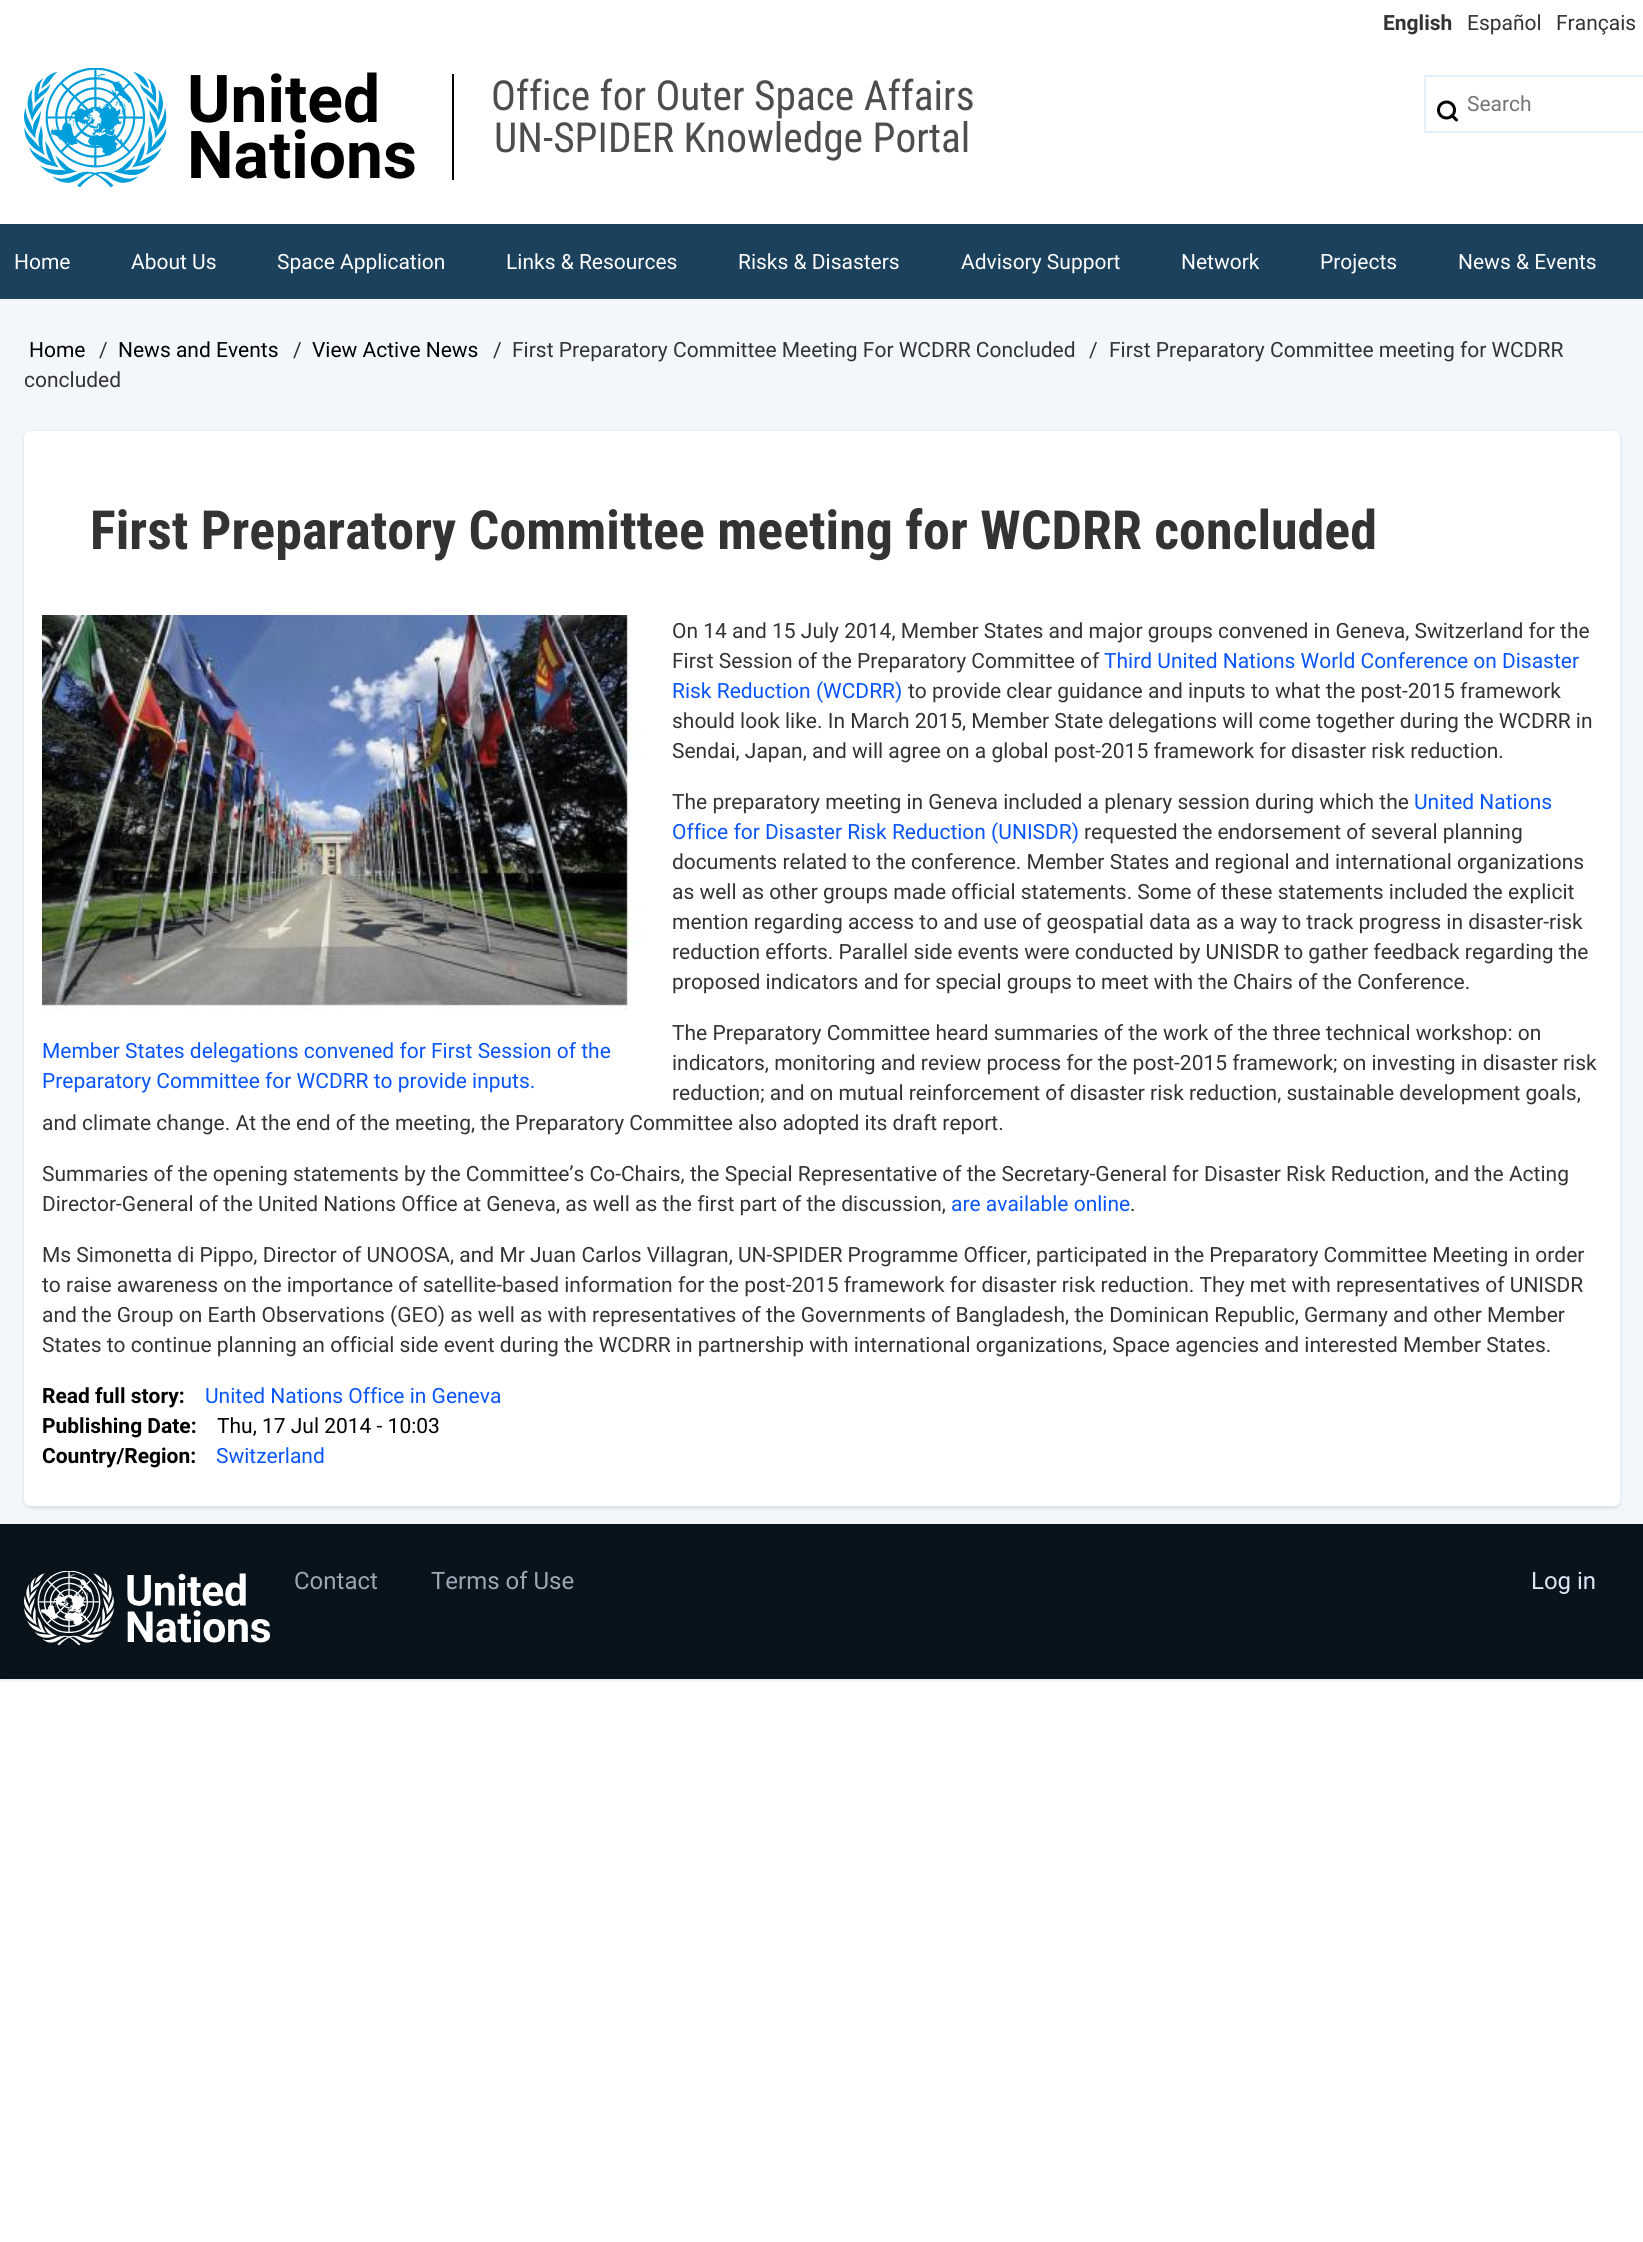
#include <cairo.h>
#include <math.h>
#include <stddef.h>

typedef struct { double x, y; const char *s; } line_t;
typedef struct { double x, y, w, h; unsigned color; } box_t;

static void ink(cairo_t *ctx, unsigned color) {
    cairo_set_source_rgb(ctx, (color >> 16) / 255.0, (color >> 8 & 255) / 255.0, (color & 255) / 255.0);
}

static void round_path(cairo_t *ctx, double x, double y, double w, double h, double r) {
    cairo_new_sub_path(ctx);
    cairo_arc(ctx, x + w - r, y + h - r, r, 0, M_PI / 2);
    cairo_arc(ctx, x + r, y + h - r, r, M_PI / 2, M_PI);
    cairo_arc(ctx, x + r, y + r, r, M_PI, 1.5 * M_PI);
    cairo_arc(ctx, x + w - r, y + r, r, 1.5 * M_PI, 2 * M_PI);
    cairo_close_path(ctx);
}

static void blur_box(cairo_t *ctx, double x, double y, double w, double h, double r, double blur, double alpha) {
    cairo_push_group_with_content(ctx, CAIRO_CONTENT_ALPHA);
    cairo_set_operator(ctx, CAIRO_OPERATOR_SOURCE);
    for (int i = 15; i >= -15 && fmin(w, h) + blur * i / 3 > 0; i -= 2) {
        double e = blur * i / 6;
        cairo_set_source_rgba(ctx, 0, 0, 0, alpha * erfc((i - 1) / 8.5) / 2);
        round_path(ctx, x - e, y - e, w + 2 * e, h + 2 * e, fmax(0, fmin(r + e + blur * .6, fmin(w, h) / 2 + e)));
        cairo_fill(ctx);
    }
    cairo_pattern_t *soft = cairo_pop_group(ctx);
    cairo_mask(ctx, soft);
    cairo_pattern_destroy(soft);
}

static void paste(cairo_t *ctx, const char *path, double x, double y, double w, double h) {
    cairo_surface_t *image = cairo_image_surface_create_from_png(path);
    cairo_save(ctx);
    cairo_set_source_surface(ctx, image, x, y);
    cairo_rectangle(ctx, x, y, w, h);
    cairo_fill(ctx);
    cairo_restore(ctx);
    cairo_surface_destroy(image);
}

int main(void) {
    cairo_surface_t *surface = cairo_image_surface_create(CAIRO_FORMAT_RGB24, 1643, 2242);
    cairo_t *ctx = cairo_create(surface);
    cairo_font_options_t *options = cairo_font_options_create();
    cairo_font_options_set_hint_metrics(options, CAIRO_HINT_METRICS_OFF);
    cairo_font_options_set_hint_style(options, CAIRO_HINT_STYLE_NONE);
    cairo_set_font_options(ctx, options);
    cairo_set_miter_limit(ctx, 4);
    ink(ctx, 0xFFFFFF);
    cairo_paint(ctx);
    cairo_select_font_face(ctx, "Roboto", CAIRO_FONT_SLANT_NORMAL, CAIRO_FONT_WEIGHT_BOLD);
    cairo_set_font_size(ctx, 21);
    ink(ctx, 0x333333);
    cairo_move_to(ctx, 1383, 30);
    cairo_show_text(ctx, "English");
    cairo_select_font_face(ctx, "Roboto", CAIRO_FONT_SLANT_NORMAL, CAIRO_FONT_WEIGHT_NORMAL);
    cairo_move_to(ctx, 1467, 30);
    cairo_show_text(ctx, "Español");
    cairo_move_to(ctx, 1556, 30);
    cairo_show_text(ctx, "Français");
    paste(ctx, "media/1.png", 24, 68, 143, 120);
    cairo_select_font_face(ctx, "Roboto", CAIRO_FONT_SLANT_NORMAL, CAIRO_FONT_WEIGHT_BOLD);
    cairo_set_font_size(ctx, 66);
    ink(ctx, 0x000000);
    cairo_move_to(ctx, 187, 122);
    cairo_show_text(ctx, "United");
    cairo_move_to(ctx, 187, 178);
    cairo_show_text(ctx, "Nations");
    cairo_rectangle(ctx, 452, 74, 2, 106);
    cairo_fill(ctx);
    cairo_select_font_face(ctx, "Roboto Condensed", CAIRO_FONT_SLANT_NORMAL, CAIRO_FONT_WEIGHT_NORMAL);
    cairo_set_font_size(ctx, 41.4);
    ink(ctx, 0x4D4D4D);
    cairo_move_to(ctx, 491, 110);
    cairo_show_text(ctx, "Office for Outer Space Affairs");
    cairo_move_to(ctx, 494, 152);
    cairo_show_text(ctx, "UN-SPIDER Knowledge Portal");
    cairo_new_path(ctx);
    cairo_arc(ctx, 1446.5, 110, 8, 0, 2 * M_PI);
    ink(ctx, 0x000000);
    cairo_set_line_width(ctx, 3);
    cairo_stroke(ctx);
    cairo_new_path(ctx);
    cairo_move_to(ctx, 1456.5, 120);
    cairo_line_to(ctx, 1452, 115.5);
    cairo_set_line_cap(ctx, CAIRO_LINE_CAP_ROUND);
    cairo_set_line_join(ctx, CAIRO_LINE_JOIN_ROUND);
    cairo_stroke(ctx);
    {
        static const box_t items[] = {
            {1424, 75, 219, 2, 0xE5F0F8},
            {1424, 131, 219, 2, 0xE5F0F8},
            {1424, 75, 2, 57, 0xE5F0F8},
        };
        for (size_t i = 0; i < sizeof items / sizeof *items; i++) {
            ink(ctx, items[i].color);
            cairo_rectangle(ctx, items[i].x, items[i].y, items[i].w, items[i].h);
            cairo_fill(ctx);
        }
    }
    cairo_select_font_face(ctx, "Roboto", CAIRO_FONT_SLANT_NORMAL, CAIRO_FONT_WEIGHT_NORMAL);
    cairo_set_font_size(ctx, 21);
    ink(ctx, 0x757575);
    cairo_move_to(ctx, 1467, 111);
    cairo_show_text(ctx, "Search");
    ink(ctx, 0x1B415D);
    cairo_rectangle(ctx, 0, 224, 1643, 75);
    cairo_fill(ctx);
    ink(ctx, 0xFFFFFF);
    {
        static const line_t items[] = {
            {14, 269, "Home"},
            {131, 269, "About Us"},
            {277, 269, "Space Application"},
            {506, 269, "Links & Resources"},
            {738, 269, "Risks & Disasters"},
            {961, 269, "Advisory Support"},
            {1181, 269, "Network"},
            {1320, 269, "Projects"},
            {1458, 269, "News & Events"},
        };
        for (size_t i = 0; i < sizeof items / sizeof *items; i++) {
            cairo_move_to(ctx, items[i].x, items[i].y);
            cairo_show_text(ctx, items[i].s);
        }
    }
    ink(ctx, 0xF2F7FB);
    cairo_rectangle(ctx, 0, 299, 1643, 1225);
    cairo_fill(ctx);
    ink(ctx, 0x000000);
    cairo_move_to(ctx, 29, 357);
    cairo_show_text(ctx, "Home");
    ink(ctx, 0x333333);
    cairo_move_to(ctx, 99, 357);
    cairo_show_text(ctx, "/");
    ink(ctx, 0x000000);
    cairo_move_to(ctx, 118, 357);
    cairo_show_text(ctx, "News and Events");
    ink(ctx, 0x333333);
    cairo_move_to(ctx, 293, 357);
    cairo_show_text(ctx, "/");
    ink(ctx, 0x000000);
    cairo_move_to(ctx, 312, 357);
    cairo_show_text(ctx, "View Active News");
    ink(ctx, 0x333333);
    {
        static const line_t items[] = {
            {493, 357, "/"},
            {512, 357, "First Preparatory Committee Meeting For WCDRR Concluded"},
            {1089, 357, "/"},
            {1109, 357, "First Preparatory Committee meeting for WCDRR"},
            {24, 387, "concluded"},
        };
        for (size_t i = 0; i < sizeof items / sizeof *items; i++) {
            cairo_move_to(ctx, items[i].x, items[i].y);
            cairo_show_text(ctx, items[i].s);
        }
    }
    ink(ctx, 0x000000);
    blur_box(ctx, 24, 432, 1596, 1076, 6, 2, 0.12);
    ink(ctx, 0xFFFFFF);
    round_path(ctx, 24, 431, 1596, 1075, 6);
    cairo_fill(ctx);
    cairo_select_font_face(ctx, "Roboto Condensed", CAIRO_FONT_SLANT_NORMAL, CAIRO_FONT_WEIGHT_BOLD);
    cairo_set_font_size(ctx, 54);
    ink(ctx, 0x333333);
    cairo_move_to(ctx, 90, 549);
    cairo_show_text(ctx, "First Preparatory Committee meeting for WCDRR concluded");
    cairo_select_font_face(ctx, "Roboto", CAIRO_FONT_SLANT_NORMAL, CAIRO_FONT_WEIGHT_NORMAL);
    cairo_set_font_size(ctx, 21);
    cairo_move_to(ctx, 672, 638);
    cairo_show_text(ctx, "On 14 and 15 July 2014, Member States and major groups convened in Geneva, Switzerland for the");
    cairo_move_to(ctx, 672, 668);
    cairo_show_text(ctx, "First Session of the Preparatory Committee of");
    ink(ctx, 0x0855FA);
    cairo_move_to(ctx, 1104, 668);
    cairo_show_text(ctx, "Third United Nations World Conference on Disaster");
    cairo_move_to(ctx, 672, 698);
    cairo_show_text(ctx, "Risk Reduction (WCDRR)");
    ink(ctx, 0x333333);
    {
        static const line_t items[] = {
            {908, 698, "to provide clear guidance and inputs to what the post-2015 framework"},
            {672, 728, "should look like. In March 2015, Member State delegations will come together during the WCDRR in"},
            {672, 758, "Sendai, Japan, and will agree on a global post-2015 framework for disaster risk reduction."},
            {672, 809, "The preparatory meeting in Geneva included a plenary session during which the"},
        };
        for (size_t i = 0; i < sizeof items / sizeof *items; i++) {
            cairo_move_to(ctx, items[i].x, items[i].y);
            cairo_show_text(ctx, items[i].s);
        }
    }
    ink(ctx, 0x0855FA);
    cairo_move_to(ctx, 1414, 809);
    cairo_show_text(ctx, "United Nations");
    cairo_move_to(ctx, 672, 839);
    cairo_show_text(ctx, "Office for Disaster Risk Reduction (UNISDR)");
    ink(ctx, 0x333333);
    {
        static const line_t items[] = {
            {1084, 839, "requested the endorsement of several planning"},
            {672, 869, "documents related to the conference. Member States and regional and international organizations"},
            {672, 899, "as well as other groups made official statements. Some of these statements included the explicit"},
            {672, 929, "mention regarding access to and use of geospatial data as a way to track progress in disaster-risk"},
            {672, 959, "reduction efforts. Parallel side events were conducted by UNISDR to gather feedback regarding the"},
            {672, 989, "proposed indicators and for special groups to meet with the Chairs of the Conference."},
            {672, 1040, "The Preparatory Committee heard summaries of the work of the three technical workshop: on"},
            {672, 1070, "indicators, monitoring and review process for the post-2015 framework; on investing in disaster risk"},
            {672, 1100, "reduction; and on mutual reinforcement of disaster risk reduction, sustainable development goals,"},
            {42, 1130, "and climate change. At the end of the meeting, the Preparatory Committee also adopted its draft report."},
            {42, 1181, "Summaries of the opening statements by the Committee’s Co-Chairs, the Special Representative of the Secretary-General for Disaster Risk Reduction, and the Acting"},
            {42, 1211, "Director-General of the United Nations Office at Geneva, as well as the first part of the discussion,"},
        };
        for (size_t i = 0; i < sizeof items / sizeof *items; i++) {
            cairo_move_to(ctx, items[i].x, items[i].y);
            cairo_show_text(ctx, items[i].s);
        }
    }
    ink(ctx, 0x0855FA);
    cairo_move_to(ctx, 951, 1211);
    cairo_show_text(ctx, "are available online");
    ink(ctx, 0x333333);
    {
        static const line_t items[] = {
            {1130, 1211, "."},
            {42, 1262, "Ms Simonetta di Pippo, Director of UNOOSA, and Mr Juan Carlos Villagran, UN-SPIDER Programme Officer, participated in the Preparatory Committee Meeting in order"},
            {42, 1292, "to raise awareness on the importance of satellite-based information for the post-2015 framework for disaster risk reduction. They met with representatives of UNISDR"},
            {42, 1322, "and the Group on Earth Observations (GEO) as well as with representatives of the Governments of Bangladesh, the Dominican Republic, Germany and other Member"},
            {42, 1352, "States to continue planning an official side event during the WCDRR in partnership with international organizations, Space agencies and interested Member States."},
        };
        for (size_t i = 0; i < sizeof items / sizeof *items; i++) {
            cairo_move_to(ctx, items[i].x, items[i].y);
            cairo_show_text(ctx, items[i].s);
        }
    }
    paste(ctx, "media/2.png", 42, 615, 600, 396);
    ink(ctx, 0x0855FA);
    cairo_move_to(ctx, 42, 1058);
    cairo_show_text(ctx, "Member States delegations convened for First Session of the");
    cairo_move_to(ctx, 42, 1088);
    cairo_show_text(ctx, "Preparatory Committee for WCDRR to provide inputs.");
    cairo_select_font_face(ctx, "Roboto", CAIRO_FONT_SLANT_NORMAL, CAIRO_FONT_WEIGHT_BOLD);
    ink(ctx, 0x000000);
    cairo_move_to(ctx, 42, 1403);
    cairo_show_text(ctx, "Read full story:");
    cairo_select_font_face(ctx, "Roboto", CAIRO_FONT_SLANT_NORMAL, CAIRO_FONT_WEIGHT_NORMAL);
    ink(ctx, 0x0855FA);
    cairo_move_to(ctx, 205, 1403);
    cairo_show_text(ctx, "United Nations Office in Geneva");
    cairo_select_font_face(ctx, "Roboto", CAIRO_FONT_SLANT_NORMAL, CAIRO_FONT_WEIGHT_BOLD);
    ink(ctx, 0x000000);
    cairo_move_to(ctx, 42, 1433);
    cairo_show_text(ctx, "Publishing Date:");
    cairo_select_font_face(ctx, "Roboto", CAIRO_FONT_SLANT_NORMAL, CAIRO_FONT_WEIGHT_NORMAL);
    cairo_move_to(ctx, 217, 1433);
    cairo_show_text(ctx, "Thu, 17 Jul 2014 - 10:03");
    cairo_select_font_face(ctx, "Roboto", CAIRO_FONT_SLANT_NORMAL, CAIRO_FONT_WEIGHT_BOLD);
    cairo_move_to(ctx, 42, 1463);
    cairo_show_text(ctx, "Country/Region:");
    cairo_select_font_face(ctx, "Roboto", CAIRO_FONT_SLANT_NORMAL, CAIRO_FONT_WEIGHT_NORMAL);
    ink(ctx, 0x0855FA);
    cairo_move_to(ctx, 216, 1463);
    cairo_show_text(ctx, "Switzerland");
    ink(ctx, 0x000000);
    blur_box(ctx, 0, 1526, 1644, 154, 0, 2, 0.12);
    ink(ctx, 0x08131B);
    cairo_rectangle(ctx, 0, 1524, 1643, 155);
    cairo_fill(ctx);
    paste(ctx, "media/3.png", 24, 1571, 246, 75);
    cairo_set_font_size(ctx, 24);
    ink(ctx, 0x9AA8B3);
    cairo_move_to(ctx, 294, 1589);
    cairo_show_text(ctx, "Contact");
    cairo_move_to(ctx, 431, 1589);
    cairo_show_text(ctx, "Terms of Use");
    ink(ctx, 0xD8E8F4);
    cairo_move_to(ctx, 1531, 1589);
    cairo_show_text(ctx, "Log in");
    cairo_surface_write_to_png(surface, "image.png");
    cairo_font_options_destroy(options);
    cairo_destroy(ctx);
    cairo_surface_destroy(surface);
    return 0;
}
